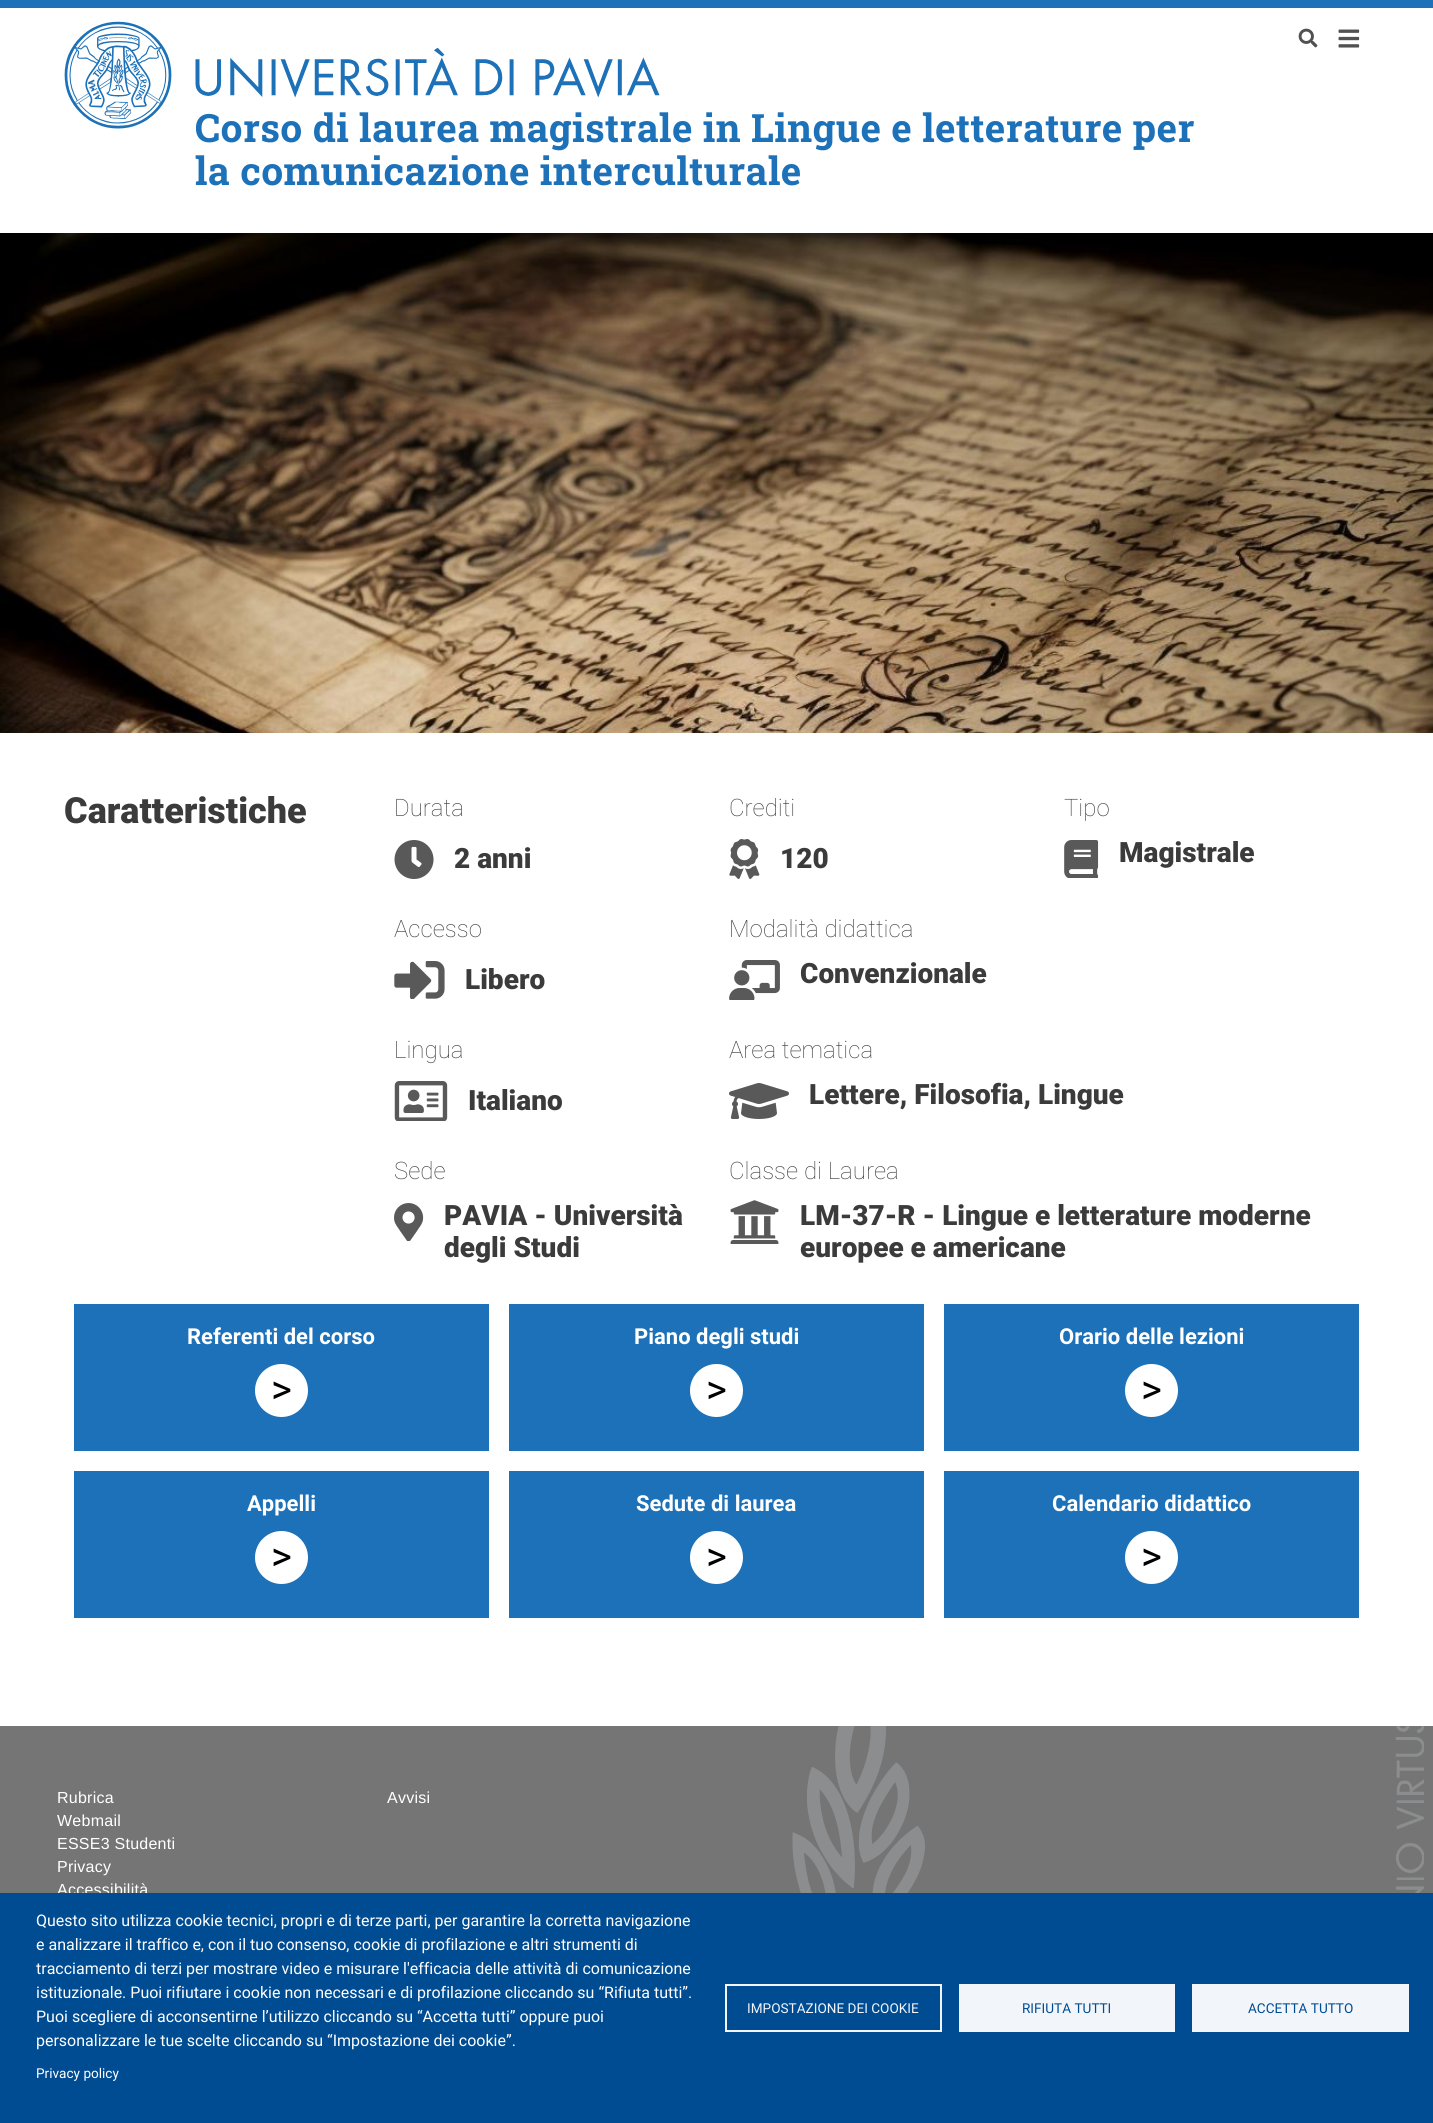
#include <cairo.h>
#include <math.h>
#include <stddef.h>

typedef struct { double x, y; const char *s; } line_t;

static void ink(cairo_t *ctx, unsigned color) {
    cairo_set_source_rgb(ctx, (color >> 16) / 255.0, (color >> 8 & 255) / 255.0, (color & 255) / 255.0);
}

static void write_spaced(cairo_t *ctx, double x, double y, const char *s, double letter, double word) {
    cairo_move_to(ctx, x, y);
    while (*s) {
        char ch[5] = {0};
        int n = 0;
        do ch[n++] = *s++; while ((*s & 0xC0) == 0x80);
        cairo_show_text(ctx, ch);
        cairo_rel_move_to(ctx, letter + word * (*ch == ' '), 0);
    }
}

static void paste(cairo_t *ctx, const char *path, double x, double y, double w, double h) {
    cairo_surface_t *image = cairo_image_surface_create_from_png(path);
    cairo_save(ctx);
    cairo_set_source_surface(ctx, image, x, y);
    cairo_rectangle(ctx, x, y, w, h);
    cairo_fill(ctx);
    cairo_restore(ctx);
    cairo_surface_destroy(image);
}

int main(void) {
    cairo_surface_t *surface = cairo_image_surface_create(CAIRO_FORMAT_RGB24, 1433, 2123);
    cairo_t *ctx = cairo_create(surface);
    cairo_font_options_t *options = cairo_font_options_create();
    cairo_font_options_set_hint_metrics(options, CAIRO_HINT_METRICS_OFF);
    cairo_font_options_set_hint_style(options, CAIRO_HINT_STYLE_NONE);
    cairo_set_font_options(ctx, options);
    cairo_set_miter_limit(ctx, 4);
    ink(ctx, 0xFFFFFF);
    cairo_paint(ctx);
    ink(ctx, 0x1D71B8);
    cairo_rectangle(ctx, 0, 0, 1433, 8);
    cairo_fill(ctx);
    cairo_select_font_face(ctx, "Roboto Slab", CAIRO_FONT_SLANT_NORMAL, CAIRO_FONT_WEIGHT_BOLD);
    cairo_set_font_size(ctx, 39);
    write_spaced(ctx, 195, 142, "Corso di laurea magistrale in Lingue e letterature per", 0.4, 0);
    paste(ctx, "media/1.png", 64, 21, 596, 108);
    write_spaced(ctx, 195, 185, "la comunicazione interculturale", 0.4, 0);
    paste(ctx, "media/2.png", 0, 233, 1433, 500);
    paste(ctx, "media/3.png", 1298, 28, 20, 20);
    paste(ctx, "media/4.png", 1338, 29, 22, 19);
    ink(ctx, 0x757575);
    cairo_rectangle(ctx, 0, 1726, 1433, 167);
    cairo_fill(ctx);
    cairo_select_font_face(ctx, "Liberation Sans", CAIRO_FONT_SLANT_NORMAL, CAIRO_FONT_WEIGHT_NORMAL);
    cairo_set_font_size(ctx, 16);
    ink(ctx, 0xFFFFFF);
    write_spaced(ctx, 57, 1895, "Accessibilità", 0.25, 0);
    ink(ctx, 0x004C93);
    cairo_rectangle(ctx, 0, 1893, 1433, 230);
    cairo_fill(ctx);
    cairo_select_font_face(ctx, "Roboto", CAIRO_FONT_SLANT_NORMAL, CAIRO_FONT_WEIGHT_NORMAL);
    ink(ctx, 0xFFFFFF);
    {
        static const line_t items[] = {
            {36, 1926, "Questo sito utilizza cookie tecnici, propri e di terze parti, per garantire la corretta navigazione"},
            {36, 1950, "e analizzare il traffico e, con il tuo consenso, cookie di profilazione e altri strumenti di"},
            {36, 1974, "tracciamento di terzi per mostrare video e misurare l'efficacia delle attività di comunicazione"},
            {36, 1998, "istituzionale. Puoi rifiutare i cookie non necessari e di profilazione cliccando su “Rifiuta tutti”."},
            {36, 2022, "Puoi scegliere di acconsentirne l’utilizzo cliccando su “Accetta tutti” oppure puoi"},
            {36, 2046, "personalizzare le tue scelte cliccando su “Impostazione dei cookie”."},
        };
        for (size_t i = 0; i < sizeof items / sizeof *items; i++) {
            cairo_move_to(ctx, items[i].x, items[i].y);
            cairo_show_text(ctx, items[i].s);
        }
    }
    cairo_set_font_size(ctx, 13.6);
    cairo_move_to(ctx, 36, 2078);
    cairo_show_text(ctx, "Privacy policy");
    cairo_rectangle(ctx, 726, 1985, 215, 46);
    ink(ctx, 0xF2F6FA);
    cairo_stroke(ctx);
    cairo_move_to(ctx, 747, 2013);
    cairo_show_text(ctx, "IMPOSTAZIONE DEI COOKIE");
    cairo_rectangle(ctx, 959, 1984, 216, 48);
    cairo_fill(ctx);
    ink(ctx, 0x004C93);
    cairo_move_to(ctx, 1022, 2013);
    cairo_show_text(ctx, "RIFIUTA TUTTI");
    ink(ctx, 0xF2F6FA);
    cairo_rectangle(ctx, 1192, 1984, 217, 48);
    cairo_fill(ctx);
    ink(ctx, 0x004C93);
    cairo_move_to(ctx, 1248, 2013);
    cairo_show_text(ctx, "ACCETTA TUTTO");
    cairo_select_font_face(ctx, "Roboto Black", CAIRO_FONT_SLANT_NORMAL, CAIRO_FONT_WEIGHT_NORMAL);
    cairo_set_font_size(ctx, 36);
    ink(ctx, 0x3B3B3B);
    cairo_move_to(ctx, 64, 823);
    cairo_show_text(ctx, "Caratteristiche");
    cairo_select_font_face(ctx, "Roboto Thin", CAIRO_FONT_SLANT_NORMAL, CAIRO_FONT_WEIGHT_NORMAL);
    cairo_set_font_size(ctx, 24);
    cairo_move_to(ctx, 394, 816);
    cairo_show_text(ctx, "Durata");
    paste(ctx, "media/5.png", 394, 840, 40, 39);
    cairo_select_font_face(ctx, "Roboto Black", CAIRO_FONT_SLANT_NORMAL, CAIRO_FONT_WEIGHT_NORMAL);
    cairo_set_font_size(ctx, 28);
    cairo_move_to(ctx, 454, 868);
    cairo_show_text(ctx, "2 anni");
    cairo_select_font_face(ctx, "Roboto Thin", CAIRO_FONT_SLANT_NORMAL, CAIRO_FONT_WEIGHT_NORMAL);
    cairo_set_font_size(ctx, 24);
    cairo_move_to(ctx, 729, 816);
    cairo_show_text(ctx, "Crediti");
    paste(ctx, "media/6.png", 729, 839, 31, 40);
    cairo_select_font_face(ctx, "Roboto Black", CAIRO_FONT_SLANT_NORMAL, CAIRO_FONT_WEIGHT_NORMAL);
    cairo_set_font_size(ctx, 28);
    cairo_move_to(ctx, 780, 868);
    cairo_show_text(ctx, "120");
    cairo_select_font_face(ctx, "Roboto Thin", CAIRO_FONT_SLANT_NORMAL, CAIRO_FONT_WEIGHT_NORMAL);
    cairo_set_font_size(ctx, 24);
    cairo_move_to(ctx, 1064, 816);
    cairo_show_text(ctx, "Tipo");
    paste(ctx, "media/7.png", 1064, 840, 35, 38);
    cairo_select_font_face(ctx, "Roboto Black", CAIRO_FONT_SLANT_NORMAL, CAIRO_FONT_WEIGHT_NORMAL);
    cairo_set_font_size(ctx, 28);
    cairo_move_to(ctx, 1119, 862);
    cairo_show_text(ctx, "Magistrale");
    cairo_select_font_face(ctx, "Roboto Thin", CAIRO_FONT_SLANT_NORMAL, CAIRO_FONT_WEIGHT_NORMAL);
    cairo_set_font_size(ctx, 24);
    cairo_move_to(ctx, 394, 937);
    cairo_show_text(ctx, "Accesso");
    paste(ctx, "media/8.png", 394, 961, 51, 38);
    cairo_select_font_face(ctx, "Roboto Black", CAIRO_FONT_SLANT_NORMAL, CAIRO_FONT_WEIGHT_NORMAL);
    cairo_set_font_size(ctx, 28);
    cairo_move_to(ctx, 465, 989);
    cairo_show_text(ctx, "Libero");
    cairo_select_font_face(ctx, "Roboto Thin", CAIRO_FONT_SLANT_NORMAL, CAIRO_FONT_WEIGHT_NORMAL);
    cairo_set_font_size(ctx, 24);
    cairo_move_to(ctx, 729, 937);
    cairo_show_text(ctx, "Modalità didattica");
    paste(ctx, "media/9.png", 729, 960, 51, 40);
    cairo_select_font_face(ctx, "Roboto Black", CAIRO_FONT_SLANT_NORMAL, CAIRO_FONT_WEIGHT_NORMAL);
    cairo_set_font_size(ctx, 28);
    cairo_move_to(ctx, 800, 983);
    cairo_show_text(ctx, "Convenzionale");
    cairo_select_font_face(ctx, "Roboto Thin", CAIRO_FONT_SLANT_NORMAL, CAIRO_FONT_WEIGHT_NORMAL);
    cairo_set_font_size(ctx, 24);
    cairo_move_to(ctx, 394, 1058);
    cairo_show_text(ctx, "Lingua");
    paste(ctx, "media/10.png", 394, 1081, 54, 40);
    cairo_select_font_face(ctx, "Roboto Black", CAIRO_FONT_SLANT_NORMAL, CAIRO_FONT_WEIGHT_NORMAL);
    cairo_set_font_size(ctx, 28);
    cairo_move_to(ctx, 468, 1110);
    cairo_show_text(ctx, "Italiano");
    cairo_select_font_face(ctx, "Roboto Thin", CAIRO_FONT_SLANT_NORMAL, CAIRO_FONT_WEIGHT_NORMAL);
    cairo_set_font_size(ctx, 24);
    cairo_move_to(ctx, 729, 1058);
    cairo_show_text(ctx, "Area tematica");
    paste(ctx, "media/11.png", 729, 1083, 60, 36);
    cairo_select_font_face(ctx, "Roboto Black", CAIRO_FONT_SLANT_NORMAL, CAIRO_FONT_WEIGHT_NORMAL);
    cairo_set_font_size(ctx, 28);
    cairo_move_to(ctx, 809, 1104);
    cairo_show_text(ctx, "Lettere, Filosofia, Lingue");
    cairo_select_font_face(ctx, "Roboto Thin", CAIRO_FONT_SLANT_NORMAL, CAIRO_FONT_WEIGHT_NORMAL);
    cairo_set_font_size(ctx, 24);
    cairo_move_to(ctx, 394, 1179);
    cairo_show_text(ctx, "Sede");
    paste(ctx, "media/12.png", 394, 1203, 30, 38);
    cairo_select_font_face(ctx, "Roboto Black", CAIRO_FONT_SLANT_NORMAL, CAIRO_FONT_WEIGHT_NORMAL);
    cairo_set_font_size(ctx, 28);
    cairo_move_to(ctx, 444, 1225);
    cairo_show_text(ctx, "PAVIA - Università");
    cairo_move_to(ctx, 444, 1257);
    cairo_show_text(ctx, "degli Studi");
    cairo_select_font_face(ctx, "Roboto Thin", CAIRO_FONT_SLANT_NORMAL, CAIRO_FONT_WEIGHT_NORMAL);
    cairo_set_font_size(ctx, 24);
    cairo_move_to(ctx, 729, 1179);
    cairo_show_text(ctx, "Classe di Laurea");
    paste(ctx, "media/13.png", 730, 1200, 49, 44);
    cairo_select_font_face(ctx, "Roboto Black", CAIRO_FONT_SLANT_NORMAL, CAIRO_FONT_WEIGHT_NORMAL);
    cairo_set_font_size(ctx, 28);
    cairo_move_to(ctx, 800, 1225);
    cairo_show_text(ctx, "LM-37-R - Lingue e letterature moderne");
    cairo_move_to(ctx, 800, 1257);
    cairo_show_text(ctx, "europee e americane");
    ink(ctx, 0x1D71B8);
    cairo_rectangle(ctx, 74, 1304, 415, 147);
    cairo_fill(ctx);
    cairo_select_font_face(ctx, "Roboto", CAIRO_FONT_SLANT_NORMAL, CAIRO_FONT_WEIGHT_BOLD);
    cairo_set_font_size(ctx, 22);
    ink(ctx, 0xFFFFFF);
    cairo_move_to(ctx, 187, 1344);
    cairo_show_text(ctx, "Referenti del corso");
    cairo_new_path(ctx);
    cairo_arc(ctx, 281.5, 1390.5, 26.5, 0, 2 * M_PI);
    cairo_fill(ctx);
    cairo_select_font_face(ctx, "Roboto", CAIRO_FONT_SLANT_NORMAL, CAIRO_FONT_WEIGHT_NORMAL);
    cairo_set_font_size(ctx, 40);
    ink(ctx, 0x000000);
    cairo_move_to(ctx, 271, 1403);
    cairo_show_text(ctx, ">");
    ink(ctx, 0x1D71B8);
    cairo_rectangle(ctx, 509, 1304, 415, 147);
    cairo_fill(ctx);
    cairo_select_font_face(ctx, "Roboto", CAIRO_FONT_SLANT_NORMAL, CAIRO_FONT_WEIGHT_BOLD);
    cairo_set_font_size(ctx, 22);
    ink(ctx, 0xFFFFFF);
    cairo_move_to(ctx, 634, 1344);
    cairo_show_text(ctx, "Piano degli studi");
    cairo_new_path(ctx);
    cairo_arc(ctx, 716.5, 1390.5, 26.5, 0, 2 * M_PI);
    cairo_fill(ctx);
    cairo_select_font_face(ctx, "Roboto", CAIRO_FONT_SLANT_NORMAL, CAIRO_FONT_WEIGHT_NORMAL);
    cairo_set_font_size(ctx, 40);
    ink(ctx, 0x000000);
    cairo_move_to(ctx, 706, 1403);
    cairo_show_text(ctx, ">");
    ink(ctx, 0x1D71B8);
    cairo_rectangle(ctx, 944, 1304, 415, 147);
    cairo_fill(ctx);
    cairo_select_font_face(ctx, "Roboto", CAIRO_FONT_SLANT_NORMAL, CAIRO_FONT_WEIGHT_BOLD);
    cairo_set_font_size(ctx, 22);
    ink(ctx, 0xFFFFFF);
    cairo_move_to(ctx, 1059, 1344);
    cairo_show_text(ctx, "Orario delle lezioni");
    cairo_new_path(ctx);
    cairo_arc(ctx, 1151.5, 1390.5, 26.5, 0, 2 * M_PI);
    cairo_fill(ctx);
    cairo_select_font_face(ctx, "Roboto", CAIRO_FONT_SLANT_NORMAL, CAIRO_FONT_WEIGHT_NORMAL);
    cairo_set_font_size(ctx, 40);
    ink(ctx, 0x000000);
    cairo_move_to(ctx, 1141, 1403);
    cairo_show_text(ctx, ">");
    ink(ctx, 0x1D71B8);
    cairo_rectangle(ctx, 74, 1471, 415, 147);
    cairo_fill(ctx);
    cairo_select_font_face(ctx, "Roboto", CAIRO_FONT_SLANT_NORMAL, CAIRO_FONT_WEIGHT_BOLD);
    cairo_set_font_size(ctx, 22);
    ink(ctx, 0xFFFFFF);
    cairo_move_to(ctx, 247, 1511);
    cairo_show_text(ctx, "Appelli");
    cairo_new_path(ctx);
    cairo_arc(ctx, 281.5, 1557.5, 26.5, 0, 2 * M_PI);
    cairo_fill(ctx);
    cairo_select_font_face(ctx, "Roboto", CAIRO_FONT_SLANT_NORMAL, CAIRO_FONT_WEIGHT_NORMAL);
    cairo_set_font_size(ctx, 40);
    ink(ctx, 0x000000);
    cairo_move_to(ctx, 271, 1570);
    cairo_show_text(ctx, ">");
    ink(ctx, 0x1D71B8);
    cairo_rectangle(ctx, 509, 1471, 415, 147);
    cairo_fill(ctx);
    cairo_select_font_face(ctx, "Roboto", CAIRO_FONT_SLANT_NORMAL, CAIRO_FONT_WEIGHT_BOLD);
    cairo_set_font_size(ctx, 22);
    ink(ctx, 0xFFFFFF);
    cairo_move_to(ctx, 636, 1511);
    cairo_show_text(ctx, "Sedute di laurea");
    cairo_new_path(ctx);
    cairo_arc(ctx, 716.5, 1557.5, 26.5, 0, 2 * M_PI);
    cairo_fill(ctx);
    cairo_select_font_face(ctx, "Roboto", CAIRO_FONT_SLANT_NORMAL, CAIRO_FONT_WEIGHT_NORMAL);
    cairo_set_font_size(ctx, 40);
    ink(ctx, 0x000000);
    cairo_move_to(ctx, 706, 1570);
    cairo_show_text(ctx, ">");
    ink(ctx, 0x1D71B8);
    cairo_rectangle(ctx, 944, 1471, 415, 147);
    cairo_fill(ctx);
    cairo_select_font_face(ctx, "Roboto", CAIRO_FONT_SLANT_NORMAL, CAIRO_FONT_WEIGHT_BOLD);
    cairo_set_font_size(ctx, 22);
    ink(ctx, 0xFFFFFF);
    cairo_move_to(ctx, 1052, 1511);
    cairo_show_text(ctx, "Calendario didattico");
    cairo_new_path(ctx);
    cairo_arc(ctx, 1151.5, 1557.5, 26.5, 0, 2 * M_PI);
    cairo_fill(ctx);
    cairo_select_font_face(ctx, "Roboto", CAIRO_FONT_SLANT_NORMAL, CAIRO_FONT_WEIGHT_NORMAL);
    cairo_set_font_size(ctx, 40);
    ink(ctx, 0x000000);
    cairo_move_to(ctx, 1141, 1570);
    cairo_show_text(ctx, ">");
    cairo_select_font_face(ctx, "Liberation Sans", CAIRO_FONT_SLANT_NORMAL, CAIRO_FONT_WEIGHT_NORMAL);
    cairo_set_font_size(ctx, 16);
    ink(ctx, 0xFFFFFF);
    {
        static const line_t items[] = {
            {57, 1803, "Rubrica"},
            {57, 1826, "Webmail"},
            {57, 1849, "ESSE3 Studenti"},
            {57, 1872, "Privacy"},
            {387, 1803, "Avvisi"},
        };
        for (size_t i = 0; i < sizeof items / sizeof *items; i++) {
            write_spaced(ctx, items[i].x, items[i].y, items[i].s, 0.25, 0);
        }
    }
    paste(ctx, "media/14.png", 792, 1726, 133, 167);
    paste(ctx, "media/15.png", 1395, 1726, 29, 167);
    cairo_surface_write_to_png(surface, "image.png");
    cairo_font_options_destroy(options);
    cairo_destroy(ctx);
    cairo_surface_destroy(surface);
    return 0;
}
